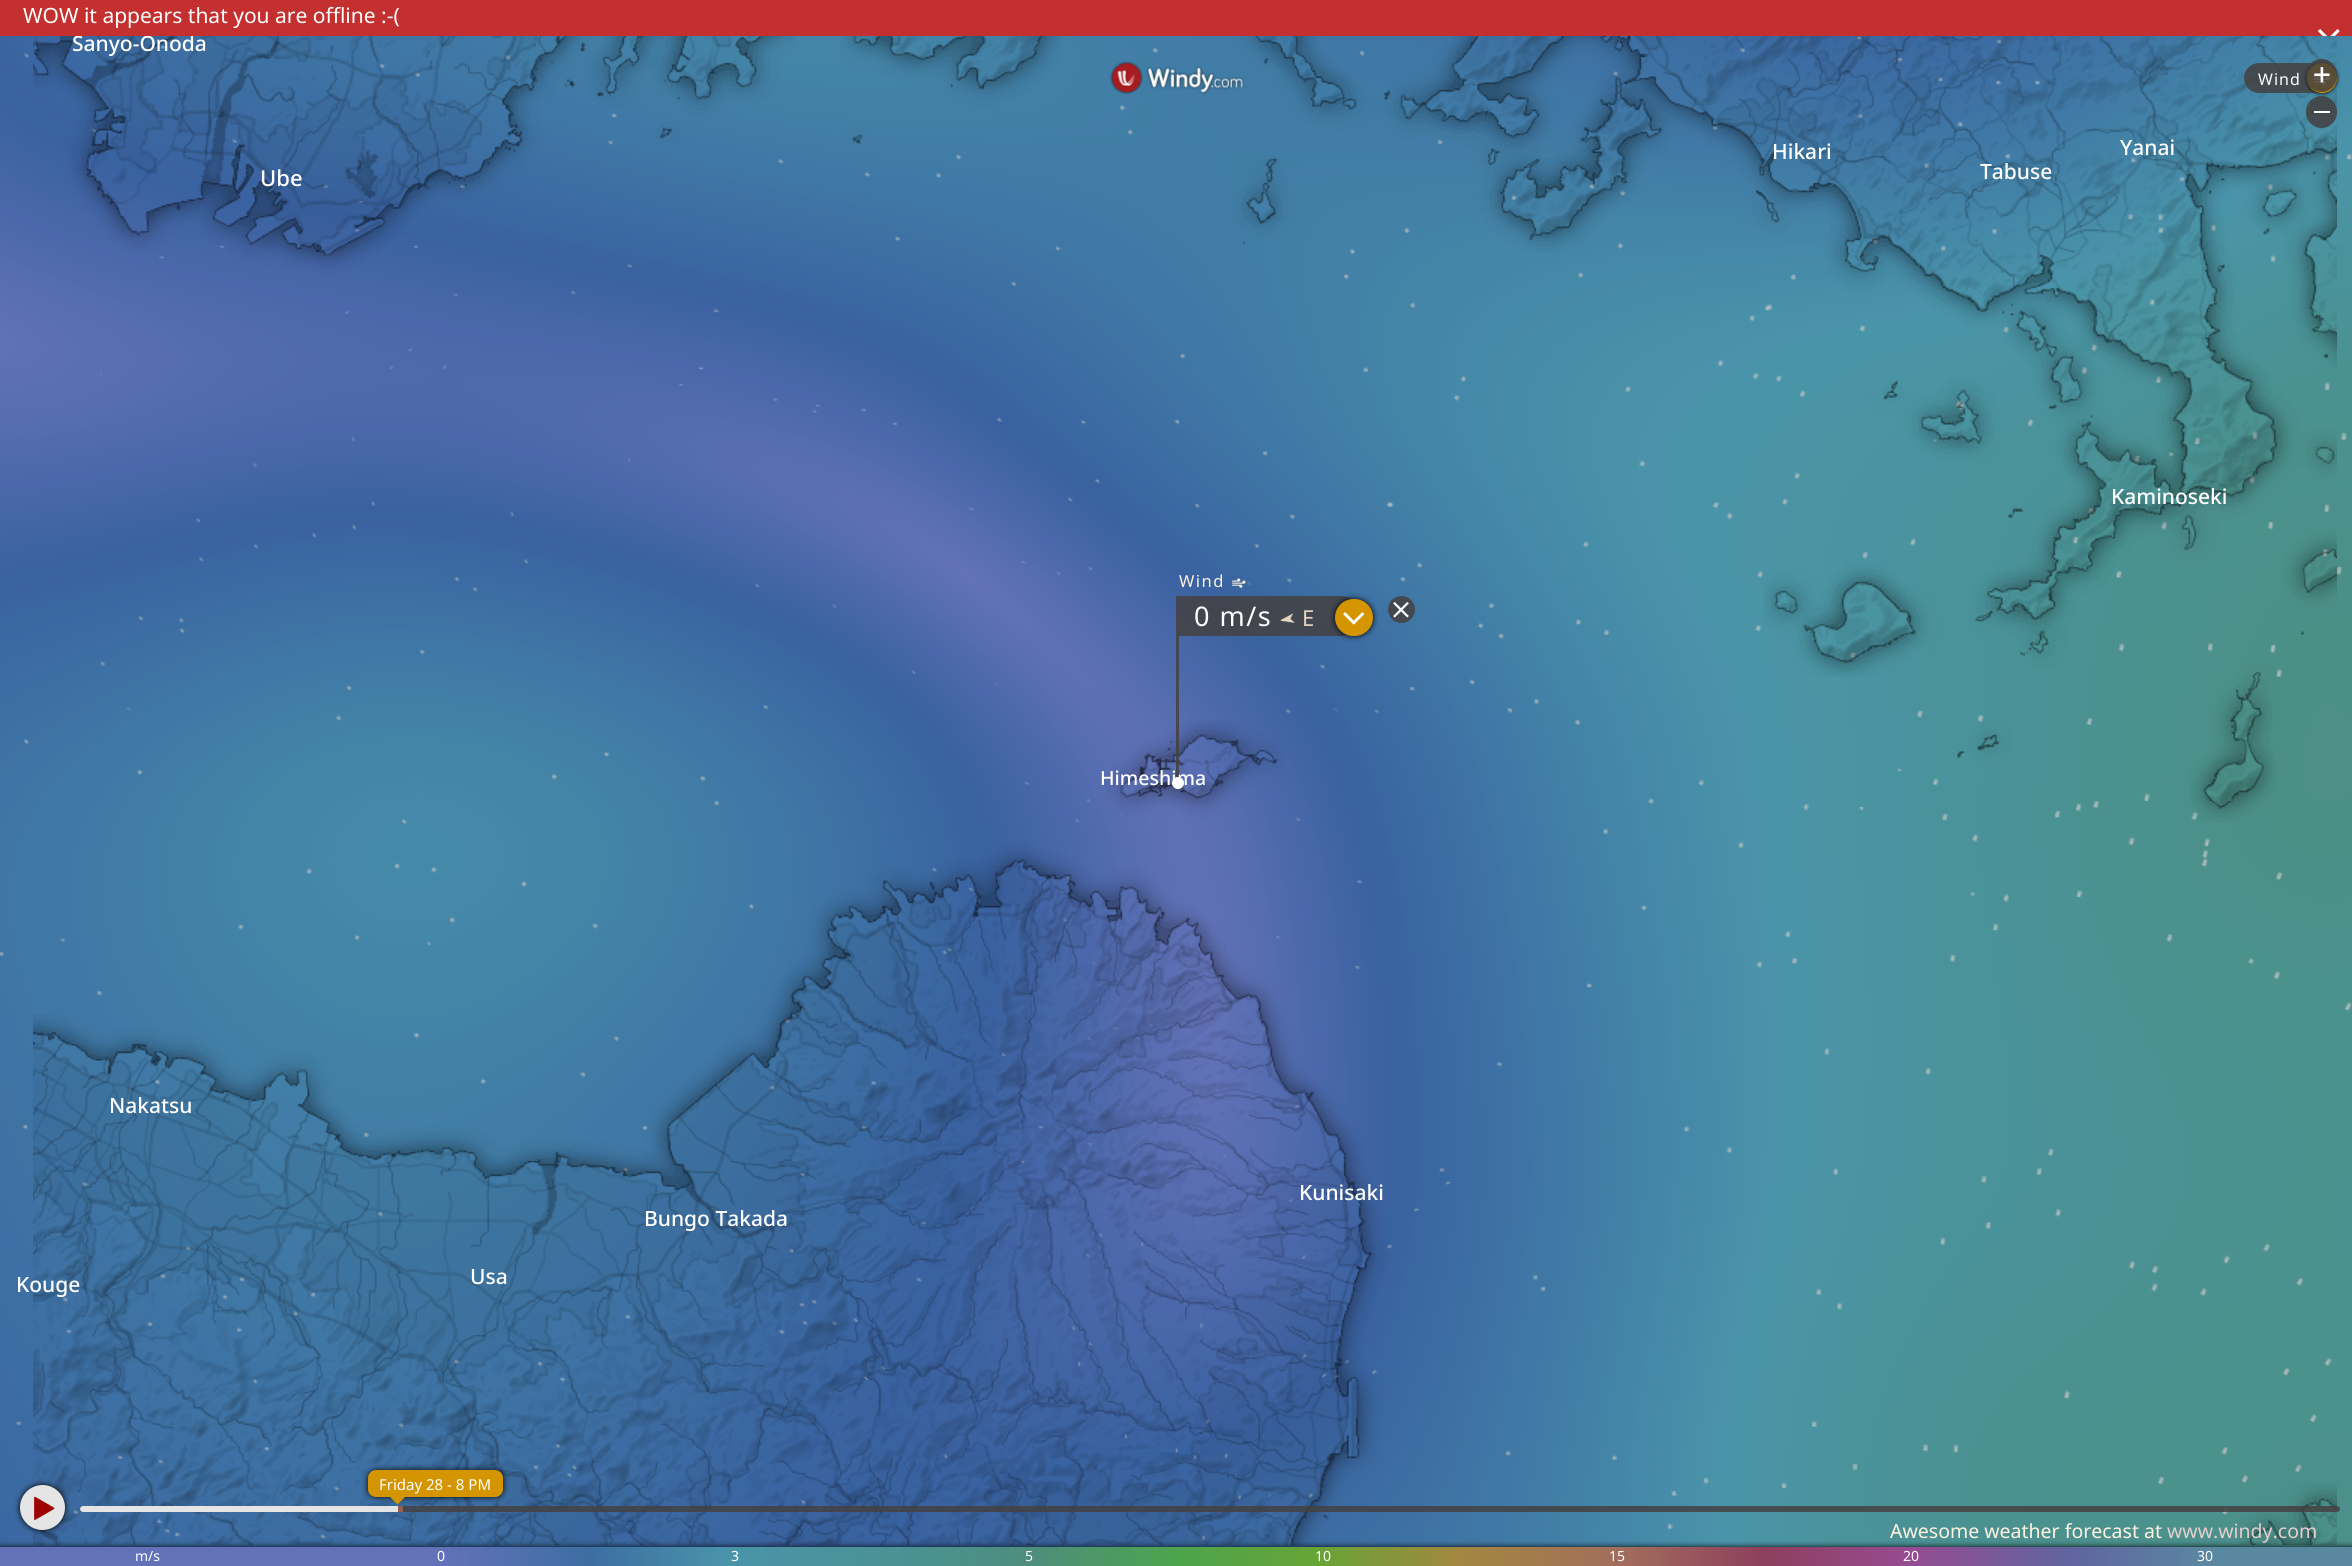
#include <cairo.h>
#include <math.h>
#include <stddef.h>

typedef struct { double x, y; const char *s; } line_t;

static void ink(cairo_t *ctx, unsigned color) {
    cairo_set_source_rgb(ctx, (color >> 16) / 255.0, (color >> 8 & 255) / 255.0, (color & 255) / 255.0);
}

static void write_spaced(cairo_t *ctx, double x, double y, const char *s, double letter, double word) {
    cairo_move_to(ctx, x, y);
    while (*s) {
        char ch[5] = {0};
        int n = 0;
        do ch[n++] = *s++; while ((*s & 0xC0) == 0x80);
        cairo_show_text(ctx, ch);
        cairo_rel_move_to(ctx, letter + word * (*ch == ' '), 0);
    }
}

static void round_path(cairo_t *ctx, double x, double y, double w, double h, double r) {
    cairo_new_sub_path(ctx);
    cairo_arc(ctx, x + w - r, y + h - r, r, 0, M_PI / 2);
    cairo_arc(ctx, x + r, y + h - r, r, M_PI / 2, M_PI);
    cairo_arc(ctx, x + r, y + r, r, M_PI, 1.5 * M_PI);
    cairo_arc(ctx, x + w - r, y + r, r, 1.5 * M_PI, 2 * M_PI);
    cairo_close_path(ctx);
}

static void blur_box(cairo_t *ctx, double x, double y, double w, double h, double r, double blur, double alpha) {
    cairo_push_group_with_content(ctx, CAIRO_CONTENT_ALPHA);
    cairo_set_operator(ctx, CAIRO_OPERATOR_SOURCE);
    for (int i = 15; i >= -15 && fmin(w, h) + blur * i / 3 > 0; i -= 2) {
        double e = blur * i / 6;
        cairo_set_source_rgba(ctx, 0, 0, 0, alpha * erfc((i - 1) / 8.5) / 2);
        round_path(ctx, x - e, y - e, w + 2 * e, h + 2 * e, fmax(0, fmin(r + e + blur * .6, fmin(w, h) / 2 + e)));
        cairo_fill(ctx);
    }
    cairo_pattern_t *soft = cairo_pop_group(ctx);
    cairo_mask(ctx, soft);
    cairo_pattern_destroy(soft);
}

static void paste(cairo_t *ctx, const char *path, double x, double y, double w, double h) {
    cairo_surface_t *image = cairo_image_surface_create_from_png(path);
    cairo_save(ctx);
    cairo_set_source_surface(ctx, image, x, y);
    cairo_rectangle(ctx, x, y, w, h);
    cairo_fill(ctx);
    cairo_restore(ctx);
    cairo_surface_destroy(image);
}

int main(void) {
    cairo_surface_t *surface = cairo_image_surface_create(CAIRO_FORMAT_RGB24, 2352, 1566);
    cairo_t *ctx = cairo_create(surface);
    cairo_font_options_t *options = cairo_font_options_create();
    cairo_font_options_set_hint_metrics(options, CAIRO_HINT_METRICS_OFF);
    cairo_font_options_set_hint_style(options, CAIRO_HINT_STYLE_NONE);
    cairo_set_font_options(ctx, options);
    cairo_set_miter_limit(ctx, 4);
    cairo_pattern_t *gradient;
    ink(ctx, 0xFFFFFF);
    cairo_paint(ctx);
    paste(ctx, "media/7.png", 33, 36, 384, 357);
    paste(ctx, "media/6.png", 0, 36, 33, 357);
    paste(ctx, "media/8.png", 417, 36, 384, 357);
    paste(ctx, "media/9.png", 801, 36, 384, 357);
    paste(ctx, "media/10.png", 1185, 36, 384, 357);
    paste(ctx, "media/11.png", 1569, 36, 384, 357);
    paste(ctx, "media/12.png", 1953, 36, 384, 357);
    paste(ctx, "media/13.png", 2337, 36, 15, 357);
    paste(ctx, "media/14.png", 0, 393, 33, 384);
    paste(ctx, "media/15.png", 33, 393, 384, 384);
    paste(ctx, "media/16.png", 417, 393, 384, 384);
    paste(ctx, "media/17.png", 801, 393, 384, 384);
    paste(ctx, "media/18.png", 1185, 393, 384, 384);
    paste(ctx, "media/19.png", 1569, 393, 384, 384);
    paste(ctx, "media/20.png", 1953, 393, 384, 384);
    paste(ctx, "media/21.png", 2337, 393, 15, 384);
    paste(ctx, "media/22.png", 0, 777, 33, 384);
    paste(ctx, "media/23.png", 33, 777, 384, 384);
    paste(ctx, "media/24.png", 417, 777, 384, 384);
    paste(ctx, "media/25.png", 801, 777, 384, 384);
    paste(ctx, "media/26.png", 1185, 777, 384, 384);
    paste(ctx, "media/27.png", 1569, 777, 384, 384);
    paste(ctx, "media/28.png", 1953, 777, 384, 384);
    paste(ctx, "media/29.png", 2337, 777, 15, 384);
    paste(ctx, "media/30.png", 0, 1161, 33, 384);
    paste(ctx, "media/31.png", 33, 1161, 384, 384);
    paste(ctx, "media/32.png", 417, 1161, 384, 384);
    paste(ctx, "media/33.png", 801, 1161, 384, 384);
    paste(ctx, "media/34.png", 1185, 1161, 384, 384);
    paste(ctx, "media/35.png", 1569, 1161, 384, 384);
    paste(ctx, "media/36.png", 1953, 1161, 384, 384);
    paste(ctx, "media/37.png", 2337, 1161, 15, 384);
    paste(ctx, "media/44.png", 0, 36, 2352, 1505);
    paste(ctx, "media/45.png", 33, 36, 384, 244);
    cairo_select_font_face(ctx, "Noto Sans Medium", CAIRO_FONT_SLANT_NORMAL, CAIRO_FONT_WEIGHT_NORMAL);
    cairo_set_font_size(ctx, 21);
    ink(ctx, 0xFFFFFF);
    cairo_move_to(ctx, 72, 51);
    cairo_show_text(ctx, "Sanyo-Onoda");
    ink(ctx, 0xC42F2F);
    cairo_rectangle(ctx, 0, 0, 2352, 36);
    cairo_fill(ctx);
    cairo_select_font_face(ctx, "Noto Sans", CAIRO_FONT_SLANT_NORMAL, CAIRO_FONT_WEIGHT_NORMAL);
    ink(ctx, 0xFFFFFF);
    cairo_move_to(ctx, 23, 23);
    cairo_show_text(ctx, "WOW it appears that you are offline :-(");
    paste(ctx, "media/1.png", 2317, 29, 23, 7);
    cairo_select_font_face(ctx, "Noto Sans Medium", CAIRO_FONT_SLANT_NORMAL, CAIRO_FONT_WEIGHT_NORMAL);
    cairo_set_font_size(ctx, 22);
    cairo_move_to(ctx, 260, 186);
    cairo_show_text(ctx, "Ube");
    paste(ctx, "media/49.png", 1569, 36, 384, 357);
    cairo_set_font_size(ctx, 21);
    cairo_move_to(ctx, 1772, 159);
    cairo_show_text(ctx, "Hikari");
    paste(ctx, "media/50.png", 1953, 36, 384, 357);
    cairo_move_to(ctx, 2120, 155);
    cairo_show_text(ctx, "Yanai");
    cairo_move_to(ctx, 1980, 179);
    cairo_show_text(ctx, "Tabuse");
    paste(ctx, "media/54.png", 1953, 393, 384, 384);
    cairo_move_to(ctx, 2111, 504);
    cairo_show_text(ctx, "Kaminoseki");
    paste(ctx, "media/51.png", 1110, 724, 75, 53);
    paste(ctx, "media/52.png", 1185, 720, 98, 57);
    paste(ctx, "media/55.png", 801, 777, 384, 384);
    paste(ctx, "media/56.png", 1185, 777, 180, 384);
    cairo_set_font_size(ctx, 19.5);
    cairo_move_to(ctx, 1100, 785);
    cairo_show_text(ctx, "Himeshima");
    paste(ctx, "media/58.png", 33, 1014, 384, 147);
    cairo_set_font_size(ctx, 21);
    cairo_move_to(ctx, 109, 1113);
    cairo_show_text(ctx, "Nakatsu");
    paste(ctx, "media/63.png", 1185, 1161, 205, 384);
    cairo_move_to(ctx, 1299, 1200);
    cairo_show_text(ctx, "Kunisaki");
    paste(ctx, "media/61.png", 417, 1161, 384, 384);
    cairo_move_to(ctx, 644, 1226);
    cairo_show_text(ctx, "Bungo Takada");
    cairo_move_to(ctx, 470, 1284);
    cairo_show_text(ctx, "Usa");
    paste(ctx, "media/60.png", 33, 1161, 384, 384);
    cairo_move_to(ctx, 16, 1292);
    cairo_show_text(ctx, "Kouge");
    cairo_set_source_rgba(ctx, 0.267, 0.255, 0.255, 0.84);
    cairo_rectangle(ctx, 1176, 596, 3, 187);
    cairo_fill(ctx);
    ink(ctx, 0xFFFFFF);
    cairo_arc(ctx, 1178, 783, 6, 0, 2 * M_PI);
    cairo_fill(ctx);
    cairo_set_source_rgba(ctx, 0.267, 0.255, 0.255, 0.84);
    cairo_new_path(ctx);
    cairo_move_to(ctx, 1179, 596);
    cairo_line_to(ctx, 1341, 596);
    cairo_curve_to(ctx, 1352, 596, 1361, 605, 1361, 616);
    cairo_curve_to(ctx, 1361, 627, 1352, 636, 1341, 636);
    cairo_line_to(ctx, 1179, 636);
    cairo_close_path(ctx);
    cairo_fill(ctx);
    cairo_select_font_face(ctx, "Noto Sans", CAIRO_FONT_SLANT_NORMAL, CAIRO_FONT_WEIGHT_NORMAL);
    cairo_set_font_size(ctx, 16.5);
    ink(ctx, 0xFFF3E1);
    write_spaced(ctx, 1179, 587, "Wind", 1.5, 0);
    paste(ctx, "media/2.png", 1232, 578, 14, 10);
    cairo_set_font_size(ctx, 27);
    ink(ctx, 0xFFFFFF);
    write_spaced(ctx, 1194, 626, "0 m/s", 1.5, 0);
    paste(ctx, "media/3.png", 1280, 613, 15, 10);
    cairo_set_font_size(ctx, 22);
    ink(ctx, 0xE4D5BD);
    write_spaced(ctx, 1302, 626, "E", 1.5, 0);
    ink(ctx, 0x000000);
    blur_box(ctx, 1335, 599, 38, 37, 18.5, 3, 1);
    ink(ctx, 0xD49500);
    round_path(ctx, 1335, 599, 38, 37, 18.5);
    cairo_fill(ctx);
    paste(ctx, "media/4.png", 1343, 612, 22, 13);
    cairo_set_source_rgba(ctx, 0.267, 0.255, 0.255, 0.84);
    cairo_arc(ctx, 1401.5, 609.5, 13.5, 0, 2 * M_PI);
    cairo_fill(ctx);
    paste(ctx, "media/5.png", 1393, 602, 16, 16);
    ink(ctx, 0x3B68A2);
    cairo_rectangle(ctx, 0, 1545, 33, 2);
    cairo_fill(ctx);
    paste(ctx, "media/38.png", 33, 1545, 384, 2);
    paste(ctx, "media/39.png", 417, 1545, 384, 2);
    paste(ctx, "media/40.png", 801, 1545, 384, 2);
    paste(ctx, "media/41.png", 1185, 1545, 384, 2);
    paste(ctx, "media/42.png", 1569, 1545, 384, 2);
    paste(ctx, "media/43.png", 1953, 1545, 384, 2);
    ink(ctx, 0x4B9089);
    cairo_rectangle(ctx, 2337, 1545, 15, 2);
    cairo_fill(ctx);
    paste(ctx, "media/46.png", 417, 36, 379, 174);
    paste(ctx, "media/47.png", 840, 36, 222, 109);
    paste(ctx, "media/48.png", 1233, 36, 336, 216);
    paste(ctx, "media/53.png", 1763, 393, 190, 284);
    paste(ctx, "media/57.png", 2191, 777, 86, 45);
    paste(ctx, "media/59.png", 417, 964, 384, 197);
    paste(ctx, "media/62.png", 801, 1161, 384, 384);
    paste(ctx, "media/64.png", 2239, 1483, 98, 62);
    cairo_set_source_rgba(ctx, 0.267, 0.255, 0.255, 0.84);
    round_path(ctx, 2244, 63, 93, 30, 15);
    cairo_fill(ctx);
    ink(ctx, 0x000000);
    blur_box(ctx, 2307, 63, 30, 30, 15, 2, 1);
    ink(ctx, 0xD49500);
    cairo_arc(ctx, 2322, 78, 15, 0, 2 * M_PI);
    cairo_fill(ctx);
    paste(ctx, "media/68.png", 2313, 73, 17, 12);
    cairo_set_source_rgba(ctx, 0.267, 0.255, 0.255, 0.84);
    round_path(ctx, 2306, 59, 31, 33, 15.5);
    cairo_fill(ctx);
    paste(ctx, "media/65.png", 2314, 67, 16, 16);
    round_path(ctx, 2306, 96, 31, 32, 15.5);
    cairo_fill(ctx);
    ink(ctx, 0xFFFFFF);
    cairo_rectangle(ctx, 2314, 111, 16, 2);
    cairo_fill(ctx);
    paste(ctx, "media/66.png", 1109, 61, 35, 34);
    paste(ctx, "media/67.png", 1146, 66, 99, 28);
    cairo_set_font_size(ctx, 16);
    write_spaced(ctx, 2258, 85, "Wind", 1, 0);
    ink(ctx, 0x000000);
    blur_box(ctx, 20, 1485, 45, 45, 22.5, 3, 1);
    ink(ctx, 0xE5E5E5);
    cairo_arc(ctx, 42.5, 1507.5, 22.5, 0, 2 * M_PI);
    cairo_fill(ctx);
    paste(ctx, "media/69.png", 34, 1496, 21, 24);
    ink(ctx, 0x000000);
    blur_box(ctx, 368, 1470, 135, 27, 8, 3, 1);
    ink(ctx, 0xD49500);
    round_path(ctx, 368, 1470, 135, 27, 8);
    cairo_fill(ctx);
    cairo_set_font_size(ctx, 15);
    ink(ctx, 0xFFFFFF);
    cairo_move_to(ctx, 379, 1490);
    cairo_show_text(ctx, "Friday 28 - 8 PM");
    ink(ctx, 0xD49500);
    cairo_new_path(ctx);
    cairo_move_to(ctx, 390, 1497);
    cairo_line_to(ctx, 405, 1497);
    cairo_line_to(ctx, 397.5, 1504.5);
    cairo_close_path(ctx);
    cairo_fill(ctx);
    cairo_set_source_rgba(ctx, 0.267, 0.255, 0.255, 0.84);
    round_path(ctx, 80, 1506, 2260, 6, 3);
    cairo_fill(ctx);
    ink(ctx, 0xE5E5E5);
    cairo_new_path(ctx);
    cairo_move_to(ctx, 83, 1506);
    cairo_line_to(ctx, 398, 1506);
    cairo_line_to(ctx, 398, 1512);
    cairo_line_to(ctx, 83, 1512);
    cairo_curve_to(ctx, 81.5, 1512, 80, 1510.5, 80, 1509);
    cairo_curve_to(ctx, 80, 1507.5, 81.5, 1506, 83, 1506);
    cairo_close_path(ctx);
    cairo_fill(ctx);
    ink(ctx, 0x946051);
    cairo_rectangle(ctx, 398, 1506, 5, 6);
    cairo_fill(ctx);
    ink(ctx, 0x000000);
    blur_box(ctx, 0, 1547, 2352, 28, 0, 3, 1);
    cairo_set_font_size(ctx, 19.5);
    ink(ctx, 0xFFF3E1);
    cairo_move_to(ctx, 1890, 1538);
    cairo_show_text(ctx, "Awesome weather forecast at");
    ink(ctx, 0xE6CECE);
    cairo_move_to(ctx, 2167, 1538);
    cairo_show_text(ctx, "www.windy.com");
    gradient = cairo_pattern_create_linear(0, 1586, 2352, 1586);
    cairo_pattern_add_color_stop_rgba(gradient, 0, 0.384, 0.443, 0.722, 1);
    cairo_pattern_add_color_stop_rgba(gradient, 0.19, 0.384, 0.443, 0.722, 1);
    cairo_pattern_add_color_stop_rgba(gradient, 0.25, 0.239, 0.431, 0.639, 1);
    cairo_pattern_add_color_stop_rgba(gradient, 0.31, 0.29, 0.58, 0.667, 1);
    cairo_pattern_add_color_stop_rgba(gradient, 0.38, 0.29, 0.573, 0.58, 1);
    cairo_pattern_add_color_stop_rgba(gradient, 0.44, 0.302, 0.557, 0.486, 1);
    cairo_pattern_add_color_stop_rgba(gradient, 0.5, 0.298, 0.643, 0.298, 1);
    cairo_pattern_add_color_stop_rgba(gradient, 0.56, 0.404, 0.643, 0.212, 1);
    cairo_pattern_add_color_stop_rgba(gradient, 0.62, 0.635, 0.529, 0.251, 1);
    cairo_pattern_add_color_stop_rgba(gradient, 0.69, 0.635, 0.427, 0.361, 1);
    cairo_pattern_add_color_stop_rgba(gradient, 0.75, 0.553, 0.247, 0.361, 1);
    cairo_pattern_add_color_stop_rgba(gradient, 0.81, 0.592, 0.294, 0.569, 1);
    cairo_pattern_add_color_stop_rgba(gradient, 0.88, 0.373, 0.392, 0.627, 1);
    cairo_pattern_add_color_stop_rgba(gradient, 0.94, 0.357, 0.533, 0.631, 1);
    cairo_pattern_add_color_stop_rgba(gradient, 1, 0.357, 0.533, 0.631, 1);
    cairo_set_source(ctx, gradient);
    cairo_pattern_destroy(gradient);
    cairo_rectangle(ctx, 0, 1547, 2352, 19);
    cairo_fill(ctx);
    cairo_set_font_size(ctx, 14);
    ink(ctx, 0xFFFFFF);
    {
        static const line_t items[] = {
            {135, 1561, "m/s"},
            {437, 1561, "0"},
            {731, 1561, "3"},
            {1025, 1561, "5"},
            {1315, 1561, "10"},
            {1609, 1561, "15"},
            {1903, 1561, "20"},
            {2197, 1561, "30"},
        };
        for (size_t i = 0; i < sizeof items / sizeof *items; i++) {
            cairo_move_to(ctx, items[i].x, items[i].y);
            cairo_show_text(ctx, items[i].s);
        }
    }
    cairo_surface_write_to_png(surface, "image.png");
    cairo_font_options_destroy(options);
    cairo_destroy(ctx);
    cairo_surface_destroy(surface);
    return 0;
}
